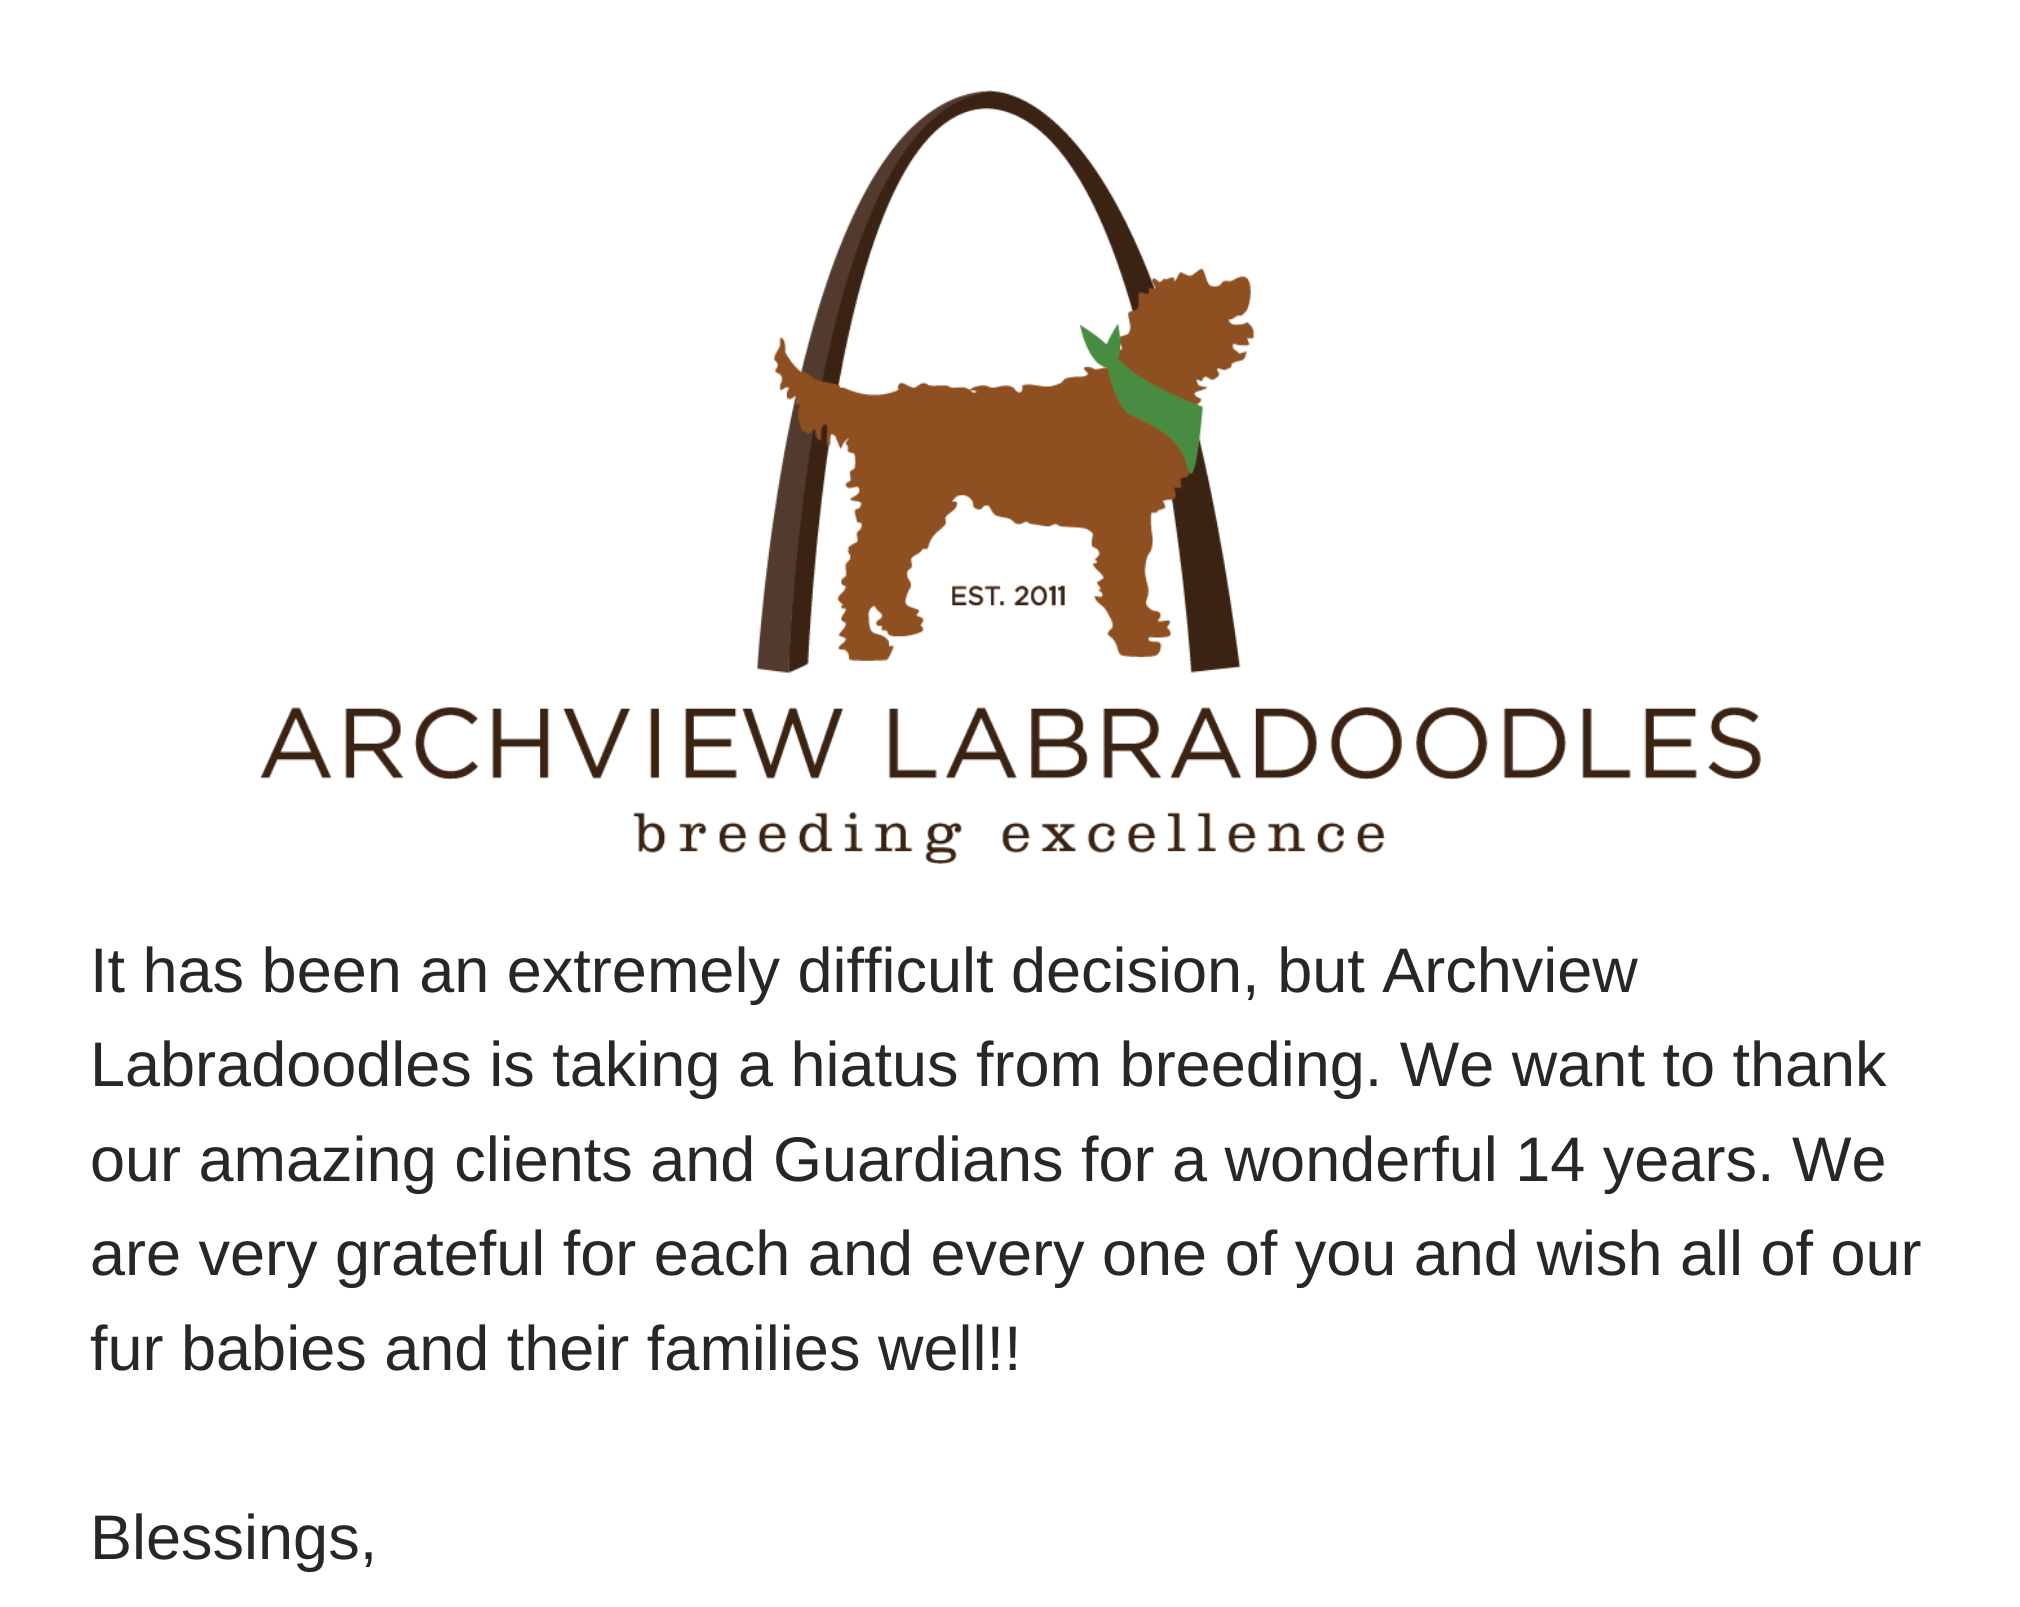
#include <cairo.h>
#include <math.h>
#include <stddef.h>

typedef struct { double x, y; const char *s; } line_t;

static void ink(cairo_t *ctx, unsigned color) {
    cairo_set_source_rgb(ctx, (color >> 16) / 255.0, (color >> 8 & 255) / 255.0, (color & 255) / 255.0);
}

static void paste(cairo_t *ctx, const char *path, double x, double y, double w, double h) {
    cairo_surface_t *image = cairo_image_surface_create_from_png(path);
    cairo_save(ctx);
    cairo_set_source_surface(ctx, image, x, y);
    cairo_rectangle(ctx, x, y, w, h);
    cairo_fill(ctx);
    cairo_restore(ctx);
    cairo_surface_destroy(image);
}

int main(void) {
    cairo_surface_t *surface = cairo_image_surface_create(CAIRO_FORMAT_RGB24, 2020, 1607);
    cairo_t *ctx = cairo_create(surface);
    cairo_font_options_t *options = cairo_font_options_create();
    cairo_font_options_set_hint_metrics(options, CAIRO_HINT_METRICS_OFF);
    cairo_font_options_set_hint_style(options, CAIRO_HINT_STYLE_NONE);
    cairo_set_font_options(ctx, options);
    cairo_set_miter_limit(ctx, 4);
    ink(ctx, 0xFFFFFF);
    cairo_paint(ctx);
    paste(ctx, "media/1.png", 261, 90, 1500, 774);
    cairo_select_font_face(ctx, "Liberation Sans", CAIRO_FONT_SLANT_NORMAL, CAIRO_FONT_WEIGHT_NORMAL);
    cairo_set_font_size(ctx, 63);
    ink(ctx, 0x272727);
    {
        static const line_t items[] = {
            {90, 992, "It has been an extremely difficult decision, but Archview"},
            {90, 1086, "Labradoodles is taking a hiatus from breeding. We want to thank"},
            {90, 1181, "our amazing clients and Guardians for a wonderful 14 years. We"},
            {90, 1275, "are very grateful for each and every one of you and wish all of our"},
            {90, 1370, "fur babies and their families well!!"},
            {90, 1559, "Blessings,"},
        };
        for (size_t i = 0; i < sizeof items / sizeof *items; i++) {
            cairo_move_to(ctx, items[i].x, items[i].y);
            cairo_show_text(ctx, items[i].s);
        }
    }
    cairo_surface_write_to_png(surface, "image.png");
    cairo_font_options_destroy(options);
    cairo_destroy(ctx);
    cairo_surface_destroy(surface);
    return 0;
}
